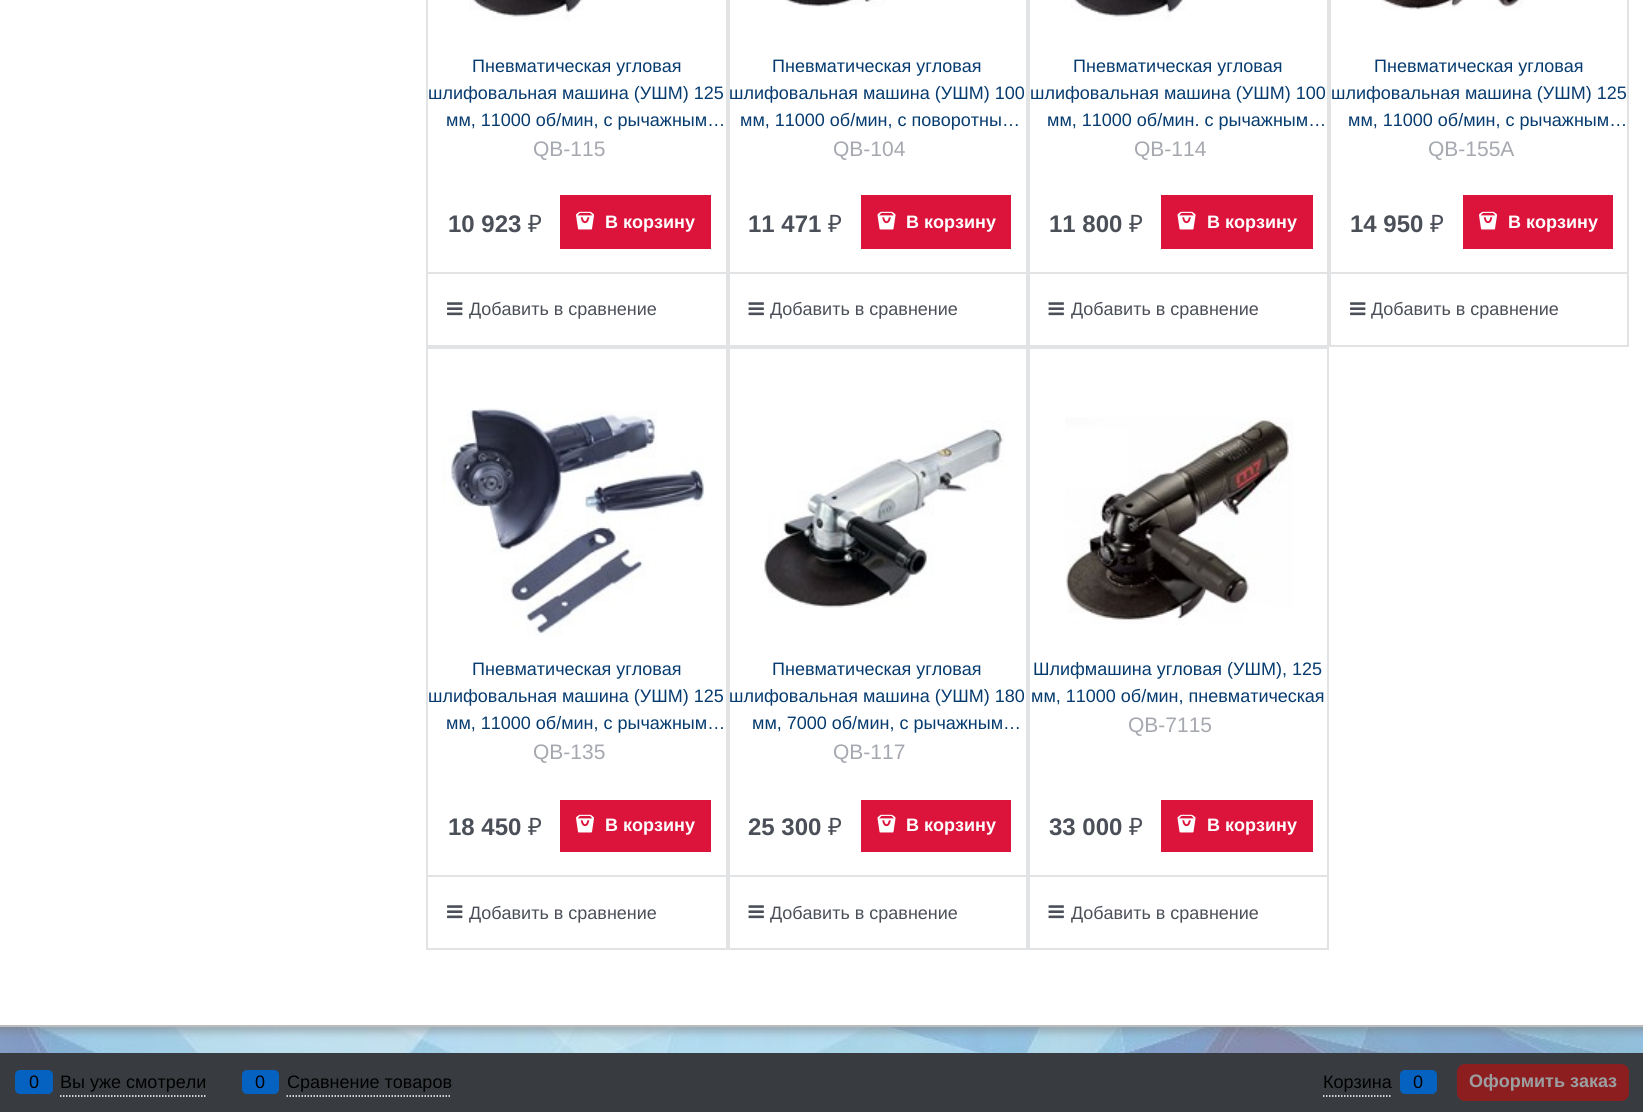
#include <cairo.h>
#include <math.h>
#include <stddef.h>

typedef struct { double x, y; const char *s; } line_t;

static void ink(cairo_t *ctx, unsigned color) {
    cairo_set_source_rgb(ctx, (color >> 16) / 255.0, (color >> 8 & 255) / 255.0, (color & 255) / 255.0);
}

static void round_path(cairo_t *ctx, double x, double y, double w, double h, double r) {
    cairo_new_sub_path(ctx);
    cairo_arc(ctx, x + w - r, y + h - r, r, 0, M_PI / 2);
    cairo_arc(ctx, x + r, y + h - r, r, M_PI / 2, M_PI);
    cairo_arc(ctx, x + r, y + r, r, M_PI, 1.5 * M_PI);
    cairo_arc(ctx, x + w - r, y + r, r, 1.5 * M_PI, 2 * M_PI);
    cairo_close_path(ctx);
}

static void blur_box(cairo_t *ctx, double x, double y, double w, double h, double r, double blur, double alpha) {
    cairo_push_group_with_content(ctx, CAIRO_CONTENT_ALPHA);
    cairo_set_operator(ctx, CAIRO_OPERATOR_SOURCE);
    for (int i = 15; i >= -15 && fmin(w, h) + blur * i / 3 > 0; i -= 2) {
        double e = blur * i / 6;
        cairo_set_source_rgba(ctx, 0, 0, 0, alpha * erfc((i - 1) / 8.5) / 2);
        round_path(ctx, x - e, y - e, w + 2 * e, h + 2 * e, fmax(0, fmin(r + e + blur * .6, fmin(w, h) / 2 + e)));
        cairo_fill(ctx);
    }
    cairo_pattern_t *soft = cairo_pop_group(ctx);
    cairo_mask(ctx, soft);
    cairo_pattern_destroy(soft);
}

static void paste(cairo_t *ctx, const char *path, double x, double y, double w, double h) {
    cairo_surface_t *image = cairo_image_surface_create_from_png(path);
    cairo_save(ctx);
    cairo_set_source_surface(ctx, image, x, y);
    cairo_rectangle(ctx, x, y, w, h);
    cairo_fill(ctx);
    cairo_restore(ctx);
    cairo_surface_destroy(image);
}

int main(void) {
    cairo_surface_t *surface = cairo_image_surface_create(CAIRO_FORMAT_RGB24, 1643, 1112);
    cairo_t *ctx = cairo_create(surface);
    cairo_font_options_t *options = cairo_font_options_create();
    cairo_font_options_set_hint_metrics(options, CAIRO_HINT_METRICS_OFF);
    cairo_font_options_set_hint_style(options, CAIRO_HINT_STYLE_NONE);
    cairo_set_font_options(ctx, options);
    cairo_set_miter_limit(ctx, 4);
    ink(ctx, 0xFFFFFF);
    cairo_paint(ctx);
    paste(ctx, "media/1.png", 0, 1027, 1643, 26);
    ink(ctx, 0xF5F5F5);
    cairo_rectangle(ctx, 0, 1025, 1643, 2);
    cairo_fill(ctx);
    ink(ctx, 0x7A7A7A);
    blur_box(ctx, -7, -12, 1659, 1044, 0, 4, 0.5);
    ink(ctx, 0xFFFFFF);
    cairo_rectangle(ctx, 0, 0, 1643, 1025);
    cairo_fill(ctx);
    cairo_rectangle(ctx, 427, -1, 300, 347);
    ink(ctx, 0xE2E3E4);
    cairo_stroke(ctx);
    paste(ctx, "media/2.png", 469, 0, 115, 21);
    cairo_select_font_face(ctx, "Liberation Sans", CAIRO_FONT_SLANT_NORMAL, CAIRO_FONT_WEIGHT_NORMAL);
    cairo_set_font_size(ctx, 18);
    ink(ctx, 0x063B6F);
    {
        static const line_t items[] = {
            {472, 72, "Пневматическая угловая"},
            {428, 99, "шлифовальная машина (УШМ) 125"},
            {446, 126, "мм, 11000 об/мин, с рычажным…"},
        };
        for (size_t i = 0; i < sizeof items / sizeof *items; i++) {
            cairo_move_to(ctx, items[i].x, items[i].y);
            cairo_show_text(ctx, items[i].s);
        }
    }
    cairo_set_font_size(ctx, 21);
    ink(ctx, 0xA5A8AF);
    cairo_move_to(ctx, 533, 156);
    cairo_show_text(ctx, "QB-115");
    cairo_select_font_face(ctx, "Liberation Sans", CAIRO_FONT_SLANT_NORMAL, CAIRO_FONT_WEIGHT_BOLD);
    cairo_set_font_size(ctx, 24);
    ink(ctx, 0x4B4F58);
    cairo_move_to(ctx, 448, 232);
    cairo_show_text(ctx, "10 923");
    cairo_select_font_face(ctx, "Noto Sans", CAIRO_FONT_SLANT_NORMAL, CAIRO_FONT_WEIGHT_NORMAL);
    cairo_move_to(ctx, 528, 232);
    cairo_show_text(ctx, "₽");
    ink(ctx, 0xDC143C);
    cairo_rectangle(ctx, 560, 195, 151, 54);
    cairo_fill(ctx);
    paste(ctx, "media/3.png", 576, 211, 18, 19);
    cairo_select_font_face(ctx, "Liberation Sans", CAIRO_FONT_SLANT_NORMAL, CAIRO_FONT_WEIGHT_BOLD);
    cairo_set_font_size(ctx, 18);
    ink(ctx, 0xFFFFFF);
    cairo_move_to(ctx, 605, 228);
    cairo_show_text(ctx, "В корзину");
    ink(ctx, 0xE2E3E4);
    cairo_rectangle(ctx, 428, 272, 298, 2);
    cairo_fill(ctx);
    paste(ctx, "media/4.png", 447, 302, 16, 14);
    cairo_select_font_face(ctx, "Liberation Sans", CAIRO_FONT_SLANT_NORMAL, CAIRO_FONT_WEIGHT_NORMAL);
    ink(ctx, 0x4B4F58);
    cairo_move_to(ctx, 469, 315);
    cairo_show_text(ctx, "Добавить в сравнение");
    cairo_rectangle(ctx, 729, -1, 298, 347);
    ink(ctx, 0xE2E3E4);
    cairo_stroke(ctx);
    paste(ctx, "media/5.png", 784, 0, 101, 7);
    ink(ctx, 0x063B6F);
    {
        static const line_t items[] = {
            {772, 72, "Пневматическая угловая"},
            {729, 99, "шлифовальная машина (УШМ) 100"},
            {740, 126, "мм, 11000 об/мин, с поворотны…"},
        };
        for (size_t i = 0; i < sizeof items / sizeof *items; i++) {
            cairo_move_to(ctx, items[i].x, items[i].y);
            cairo_show_text(ctx, items[i].s);
        }
    }
    cairo_set_font_size(ctx, 21);
    ink(ctx, 0xA5A8AF);
    cairo_move_to(ctx, 833, 156);
    cairo_show_text(ctx, "QB-104");
    cairo_select_font_face(ctx, "Liberation Sans", CAIRO_FONT_SLANT_NORMAL, CAIRO_FONT_WEIGHT_BOLD);
    cairo_set_font_size(ctx, 24);
    ink(ctx, 0x4B4F58);
    cairo_move_to(ctx, 748, 232);
    cairo_show_text(ctx, "11 471");
    cairo_select_font_face(ctx, "Noto Sans", CAIRO_FONT_SLANT_NORMAL, CAIRO_FONT_WEIGHT_NORMAL);
    cairo_move_to(ctx, 828, 232);
    cairo_show_text(ctx, "₽");
    ink(ctx, 0xDC143C);
    cairo_rectangle(ctx, 861, 195, 150, 54);
    cairo_fill(ctx);
    paste(ctx, "media/6.png", 877, 211, 19, 19);
    cairo_select_font_face(ctx, "Liberation Sans", CAIRO_FONT_SLANT_NORMAL, CAIRO_FONT_WEIGHT_BOLD);
    cairo_set_font_size(ctx, 18);
    ink(ctx, 0xFFFFFF);
    cairo_move_to(ctx, 906, 228);
    cairo_show_text(ctx, "В корзину");
    ink(ctx, 0xE2E3E4);
    cairo_rectangle(ctx, 729, 272, 297, 2);
    cairo_fill(ctx);
    paste(ctx, "media/7.png", 748, 302, 16, 14);
    cairo_select_font_face(ctx, "Liberation Sans", CAIRO_FONT_SLANT_NORMAL, CAIRO_FONT_WEIGHT_NORMAL);
    ink(ctx, 0x4B4F58);
    cairo_move_to(ctx, 770, 315);
    cairo_show_text(ctx, "Добавить в сравнение");
    cairo_rectangle(ctx, 1029, -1, 299, 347);
    ink(ctx, 0xE2E3E4);
    cairo_stroke(ctx);
    paste(ctx, "media/8.png", 1071, 0, 115, 21);
    ink(ctx, 0x063B6F);
    {
        static const line_t items[] = {
            {1073, 72, "Пневматическая угловая"},
            {1030, 99, "шлифовальная машина (УШМ) 100"},
            {1047, 126, "мм, 11000 об/мин. с рычажным…"},
        };
        for (size_t i = 0; i < sizeof items / sizeof *items; i++) {
            cairo_move_to(ctx, items[i].x, items[i].y);
            cairo_show_text(ctx, items[i].s);
        }
    }
    cairo_set_font_size(ctx, 21);
    ink(ctx, 0xA5A8AF);
    cairo_move_to(ctx, 1134, 156);
    cairo_show_text(ctx, "QB-114");
    cairo_select_font_face(ctx, "Liberation Sans", CAIRO_FONT_SLANT_NORMAL, CAIRO_FONT_WEIGHT_BOLD);
    cairo_set_font_size(ctx, 24);
    ink(ctx, 0x4B4F58);
    cairo_move_to(ctx, 1049, 232);
    cairo_show_text(ctx, "11 800");
    cairo_select_font_face(ctx, "Noto Sans", CAIRO_FONT_SLANT_NORMAL, CAIRO_FONT_WEIGHT_NORMAL);
    cairo_move_to(ctx, 1129, 232);
    cairo_show_text(ctx, "₽");
    ink(ctx, 0xDC143C);
    cairo_rectangle(ctx, 1161, 195, 152, 54);
    cairo_fill(ctx);
    paste(ctx, "media/6.png", 1177, 211, 19, 19);
    cairo_select_font_face(ctx, "Liberation Sans", CAIRO_FONT_SLANT_NORMAL, CAIRO_FONT_WEIGHT_BOLD);
    cairo_set_font_size(ctx, 18);
    ink(ctx, 0xFFFFFF);
    cairo_move_to(ctx, 1207, 228);
    cairo_show_text(ctx, "В корзину");
    ink(ctx, 0xE2E3E4);
    cairo_rectangle(ctx, 1029, 272, 299, 2);
    cairo_fill(ctx);
    paste(ctx, "media/7.png", 1048, 302, 16, 14);
    cairo_select_font_face(ctx, "Liberation Sans", CAIRO_FONT_SLANT_NORMAL, CAIRO_FONT_WEIGHT_NORMAL);
    ink(ctx, 0x4B4F58);
    cairo_move_to(ctx, 1071, 315);
    cairo_show_text(ctx, "Добавить в сравнение");
    cairo_rectangle(ctx, 1330, -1, 298, 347);
    ink(ctx, 0xE2E3E4);
    cairo_stroke(ctx);
    paste(ctx, "media/9.png", 1381, 0, 142, 10);
    ink(ctx, 0x063B6F);
    {
        static const line_t items[] = {
            {1374, 72, "Пневматическая угловая"},
            {1331, 99, "шлифовальная машина (УШМ) 125"},
            {1348, 126, "мм, 11000 об/мин, с рычажным…"},
        };
        for (size_t i = 0; i < sizeof items / sizeof *items; i++) {
            cairo_move_to(ctx, items[i].x, items[i].y);
            cairo_show_text(ctx, items[i].s);
        }
    }
    cairo_set_font_size(ctx, 21);
    ink(ctx, 0xA5A8AF);
    cairo_move_to(ctx, 1428, 156);
    cairo_show_text(ctx, "QB-155A");
    cairo_select_font_face(ctx, "Liberation Sans", CAIRO_FONT_SLANT_NORMAL, CAIRO_FONT_WEIGHT_BOLD);
    cairo_set_font_size(ctx, 24);
    ink(ctx, 0x4B4F58);
    cairo_move_to(ctx, 1350, 232);
    cairo_show_text(ctx, "14 950");
    cairo_select_font_face(ctx, "Noto Sans", CAIRO_FONT_SLANT_NORMAL, CAIRO_FONT_WEIGHT_NORMAL);
    cairo_move_to(ctx, 1430, 232);
    cairo_show_text(ctx, "₽");
    ink(ctx, 0xDC143C);
    cairo_rectangle(ctx, 1463, 195, 150, 54);
    cairo_fill(ctx);
    paste(ctx, "media/3.png", 1479, 211, 18, 19);
    cairo_select_font_face(ctx, "Liberation Sans", CAIRO_FONT_SLANT_NORMAL, CAIRO_FONT_WEIGHT_BOLD);
    cairo_set_font_size(ctx, 18);
    ink(ctx, 0xFFFFFF);
    cairo_move_to(ctx, 1508, 228);
    cairo_show_text(ctx, "В корзину");
    ink(ctx, 0xE2E3E4);
    cairo_rectangle(ctx, 1331, 272, 297, 2);
    cairo_fill(ctx);
    paste(ctx, "media/4.png", 1350, 302, 16, 14);
    cairo_select_font_face(ctx, "Liberation Sans", CAIRO_FONT_SLANT_NORMAL, CAIRO_FONT_WEIGHT_NORMAL);
    ink(ctx, 0x4B4F58);
    cairo_move_to(ctx, 1371, 315);
    cairo_show_text(ctx, "Добавить в сравнение");
    cairo_rectangle(ctx, 427, 348, 300, 601);
    ink(ctx, 0xE2E3E4);
    cairo_stroke(ctx);
    paste(ctx, "media/10.png", 442, 408, 263, 228);
    ink(ctx, 0x063B6F);
    {
        static const line_t items[] = {
            {472, 675, "Пневматическая угловая"},
            {428, 702, "шлифовальная машина (УШМ) 125"},
            {446, 729, "мм, 11000 об/мин, с рычажным…"},
        };
        for (size_t i = 0; i < sizeof items / sizeof *items; i++) {
            cairo_move_to(ctx, items[i].x, items[i].y);
            cairo_show_text(ctx, items[i].s);
        }
    }
    cairo_set_font_size(ctx, 21);
    ink(ctx, 0xA5A8AF);
    cairo_move_to(ctx, 533, 759);
    cairo_show_text(ctx, "QB-135");
    cairo_select_font_face(ctx, "Liberation Sans", CAIRO_FONT_SLANT_NORMAL, CAIRO_FONT_WEIGHT_BOLD);
    cairo_set_font_size(ctx, 24);
    ink(ctx, 0x4B4F58);
    cairo_move_to(ctx, 448, 835);
    cairo_show_text(ctx, "18 450");
    cairo_select_font_face(ctx, "Noto Sans", CAIRO_FONT_SLANT_NORMAL, CAIRO_FONT_WEIGHT_NORMAL);
    cairo_move_to(ctx, 528, 835);
    cairo_show_text(ctx, "₽");
    ink(ctx, 0xDC143C);
    cairo_rectangle(ctx, 560, 800, 151, 52);
    cairo_fill(ctx);
    paste(ctx, "media/3.png", 576, 814, 18, 19);
    cairo_select_font_face(ctx, "Liberation Sans", CAIRO_FONT_SLANT_NORMAL, CAIRO_FONT_WEIGHT_BOLD);
    cairo_set_font_size(ctx, 18);
    ink(ctx, 0xFFFFFF);
    cairo_move_to(ctx, 605, 831);
    cairo_show_text(ctx, "В корзину");
    ink(ctx, 0xE2E3E4);
    cairo_rectangle(ctx, 428, 875, 298, 2);
    cairo_fill(ctx);
    paste(ctx, "media/4.png", 447, 905, 16, 14);
    cairo_select_font_face(ctx, "Liberation Sans", CAIRO_FONT_SLANT_NORMAL, CAIRO_FONT_WEIGHT_NORMAL);
    ink(ctx, 0x4B4F58);
    cairo_move_to(ctx, 469, 919);
    cairo_show_text(ctx, "Добавить в сравнение");
    cairo_rectangle(ctx, 729, 348, 298, 601);
    ink(ctx, 0xE2E3E4);
    cairo_stroke(ctx);
    paste(ctx, "media/11.png", 762, 420, 243, 188);
    ink(ctx, 0x063B6F);
    {
        static const line_t items[] = {
            {772, 675, "Пневматическая угловая"},
            {729, 702, "шлифовальная машина (УШМ) 180"},
            {752, 729, "мм, 7000 об/мин, с рычажным…"},
        };
        for (size_t i = 0; i < sizeof items / sizeof *items; i++) {
            cairo_move_to(ctx, items[i].x, items[i].y);
            cairo_show_text(ctx, items[i].s);
        }
    }
    cairo_set_font_size(ctx, 21);
    ink(ctx, 0xA5A8AF);
    cairo_move_to(ctx, 833, 759);
    cairo_show_text(ctx, "QB-117");
    cairo_select_font_face(ctx, "Liberation Sans", CAIRO_FONT_SLANT_NORMAL, CAIRO_FONT_WEIGHT_BOLD);
    cairo_set_font_size(ctx, 24);
    ink(ctx, 0x4B4F58);
    cairo_move_to(ctx, 748, 835);
    cairo_show_text(ctx, "25 300");
    cairo_select_font_face(ctx, "Noto Sans", CAIRO_FONT_SLANT_NORMAL, CAIRO_FONT_WEIGHT_NORMAL);
    cairo_move_to(ctx, 828, 835);
    cairo_show_text(ctx, "₽");
    ink(ctx, 0xDC143C);
    cairo_rectangle(ctx, 861, 800, 150, 52);
    cairo_fill(ctx);
    paste(ctx, "media/6.png", 877, 814, 19, 19);
    cairo_select_font_face(ctx, "Liberation Sans", CAIRO_FONT_SLANT_NORMAL, CAIRO_FONT_WEIGHT_BOLD);
    cairo_set_font_size(ctx, 18);
    ink(ctx, 0xFFFFFF);
    cairo_move_to(ctx, 906, 831);
    cairo_show_text(ctx, "В корзину");
    ink(ctx, 0xE2E3E4);
    cairo_rectangle(ctx, 729, 875, 297, 2);
    cairo_fill(ctx);
    paste(ctx, "media/7.png", 748, 905, 16, 14);
    cairo_select_font_face(ctx, "Liberation Sans", CAIRO_FONT_SLANT_NORMAL, CAIRO_FONT_WEIGHT_NORMAL);
    ink(ctx, 0x4B4F58);
    cairo_move_to(ctx, 770, 919);
    cairo_show_text(ctx, "Добавить в сравнение");
    cairo_rectangle(ctx, 1029, 348, 299, 601);
    ink(ctx, 0xE2E3E4);
    cairo_stroke(ctx);
    paste(ctx, "media/12.png", 1065, 417, 228, 208);
    ink(ctx, 0x063B6F);
    cairo_move_to(ctx, 1033, 675);
    cairo_show_text(ctx, "Шлифмашина угловая (УШМ), 125");
    cairo_move_to(ctx, 1031, 702);
    cairo_show_text(ctx, "мм, 11000 об/мин, пневматическая");
    cairo_set_font_size(ctx, 21);
    ink(ctx, 0xA5A8AF);
    cairo_move_to(ctx, 1128, 732);
    cairo_show_text(ctx, "QB-7115");
    cairo_select_font_face(ctx, "Liberation Sans", CAIRO_FONT_SLANT_NORMAL, CAIRO_FONT_WEIGHT_BOLD);
    cairo_set_font_size(ctx, 24);
    ink(ctx, 0x4B4F58);
    cairo_move_to(ctx, 1049, 835);
    cairo_show_text(ctx, "33 000");
    cairo_select_font_face(ctx, "Noto Sans", CAIRO_FONT_SLANT_NORMAL, CAIRO_FONT_WEIGHT_NORMAL);
    cairo_move_to(ctx, 1129, 835);
    cairo_show_text(ctx, "₽");
    ink(ctx, 0xDC143C);
    cairo_rectangle(ctx, 1161, 800, 152, 52);
    cairo_fill(ctx);
    paste(ctx, "media/6.png", 1177, 814, 19, 19);
    cairo_select_font_face(ctx, "Liberation Sans", CAIRO_FONT_SLANT_NORMAL, CAIRO_FONT_WEIGHT_BOLD);
    cairo_set_font_size(ctx, 18);
    ink(ctx, 0xFFFFFF);
    cairo_move_to(ctx, 1207, 831);
    cairo_show_text(ctx, "В корзину");
    ink(ctx, 0xE2E3E4);
    cairo_rectangle(ctx, 1029, 875, 299, 2);
    cairo_fill(ctx);
    paste(ctx, "media/7.png", 1048, 905, 16, 14);
    cairo_select_font_face(ctx, "Liberation Sans", CAIRO_FONT_SLANT_NORMAL, CAIRO_FONT_WEIGHT_NORMAL);
    ink(ctx, 0x4B4F58);
    cairo_move_to(ctx, 1071, 919);
    cairo_show_text(ctx, "Добавить в сравнение");
    ink(ctx, 0x383C40);
    cairo_rectangle(ctx, 0, 1053, 1643, 59);
    cairo_fill(ctx);
    cairo_new_path(ctx);
    cairo_move_to(ctx, 60, 1096);
    cairo_line_to(ctx, 205.5, 1096);
    ink(ctx, 0xFFFFFF);
    cairo_set_line_width(ctx, 1.5);
    cairo_set_dash(ctx, (double[]){1.5, 1.5}, 2, 0);
    cairo_stroke(ctx);
    ink(ctx, 0x0662C1);
    round_path(ctx, 15, 1070, 38, 24, 5);
    cairo_fill(ctx);
    ink(ctx, 0x000000);
    cairo_move_to(ctx, 29, 1088);
    cairo_show_text(ctx, "0");
    cairo_move_to(ctx, 60, 1088);
    cairo_show_text(ctx, "Вы уже смотрели");
    cairo_new_path(ctx);
    cairo_move_to(ctx, 286.5, 1096);
    cairo_line_to(ctx, 451.5, 1096);
    ink(ctx, 0xFFFFFF);
    cairo_stroke(ctx);
    ink(ctx, 0x0662C1);
    round_path(ctx, 242, 1070, 37, 24, 5);
    cairo_fill(ctx);
    ink(ctx, 0x000000);
    cairo_move_to(ctx, 255, 1088);
    cairo_show_text(ctx, "0");
    cairo_move_to(ctx, 287, 1088);
    cairo_show_text(ctx, "Сравнение товаров");
    cairo_new_path(ctx);
    cairo_move_to(ctx, 1323, 1096);
    cairo_line_to(ctx, 1392, 1096);
    ink(ctx, 0xFFFFFF);
    cairo_stroke(ctx);
    ink(ctx, 0x000000);
    cairo_move_to(ctx, 1323, 1088);
    cairo_show_text(ctx, "Корзина");
    ink(ctx, 0x0662C1);
    round_path(ctx, 1400, 1070, 37, 24, 5);
    cairo_fill(ctx);
    ink(ctx, 0x000000);
    cairo_move_to(ctx, 1413, 1088);
    cairo_show_text(ctx, "0");
    ink(ctx, 0x8D1E20);
    round_path(ctx, 1457, 1064, 172, 37, 8);
    cairo_fill(ctx);
    cairo_select_font_face(ctx, "Liberation Sans", CAIRO_FONT_SLANT_NORMAL, CAIRO_FONT_WEIGHT_BOLD);
    ink(ctx, 0x9C9EA0);
    cairo_move_to(ctx, 1469, 1087);
    cairo_show_text(ctx, "Оформить заказ");
    cairo_surface_write_to_png(surface, "image.png");
    cairo_font_options_destroy(options);
    cairo_destroy(ctx);
    cairo_surface_destroy(surface);
    return 0;
}
